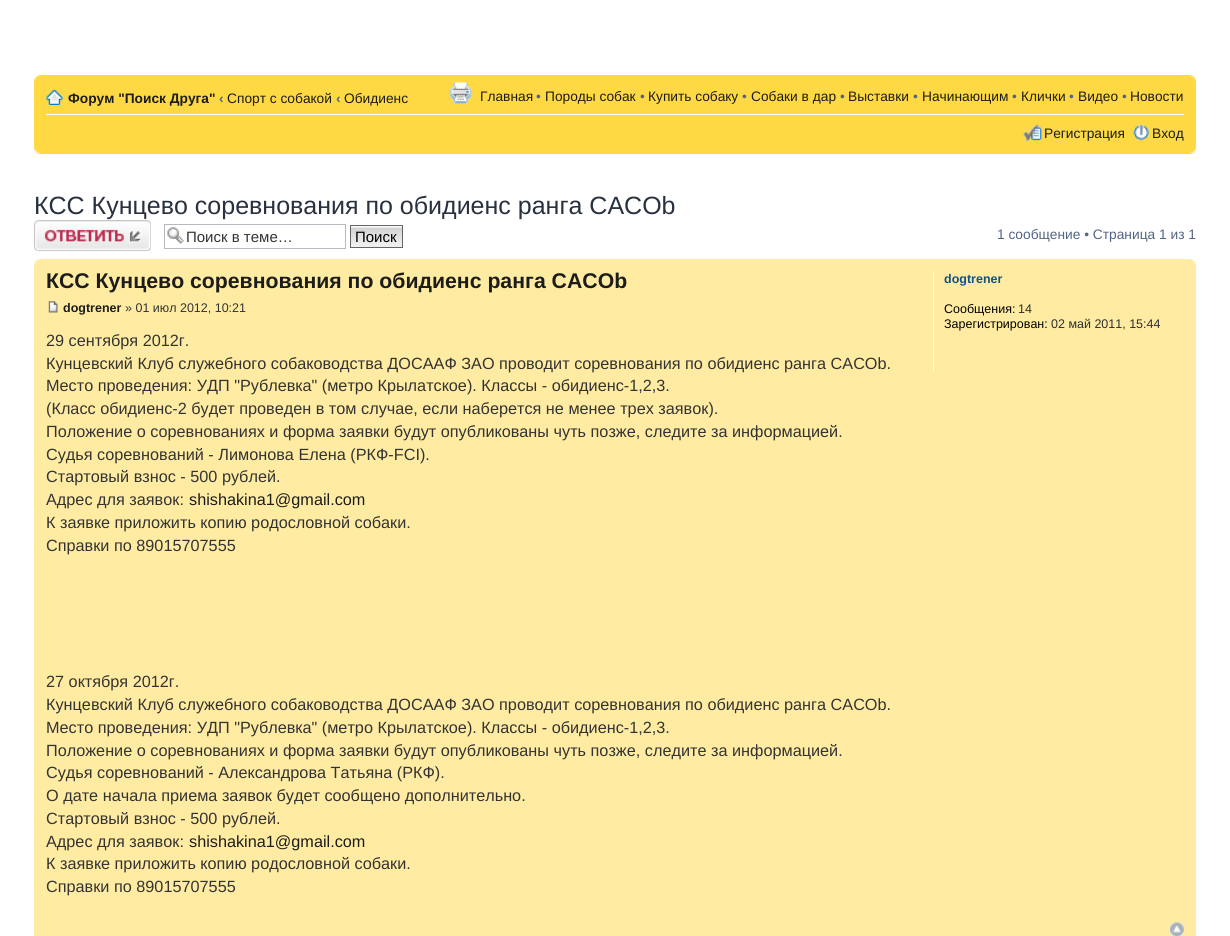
#include <cairo.h>
#include <math.h>
#include <stddef.h>

typedef struct { double x, y; const char *s; } line_t;

static void ink(cairo_t *ctx, unsigned color) {
    cairo_set_source_rgb(ctx, (color >> 16) / 255.0, (color >> 8 & 255) / 255.0, (color & 255) / 255.0);
}

static void paste(cairo_t *ctx, const char *path, double x, double y, double w, double h) {
    cairo_surface_t *image = cairo_image_surface_create_from_png(path);
    cairo_save(ctx);
    cairo_set_source_surface(ctx, image, x, y);
    cairo_rectangle(ctx, x, y, w, h);
    cairo_fill(ctx);
    cairo_restore(ctx);
    cairo_surface_destroy(image);
}

int main(void) {
    cairo_surface_t *surface = cairo_image_surface_create(CAIRO_FORMAT_RGB24, 1230, 936);
    cairo_t *ctx = cairo_create(surface);
    cairo_font_options_t *options = cairo_font_options_create();
    cairo_font_options_set_hint_metrics(options, CAIRO_HINT_METRICS_OFF);
    cairo_font_options_set_hint_style(options, CAIRO_HINT_STYLE_NONE);
    cairo_set_font_options(ctx, options);
    cairo_set_miter_limit(ctx, 4);
    ink(ctx, 0xFFFFFF);
    cairo_paint(ctx);
    ink(ctx, 0xFFD944);
    cairo_rectangle(ctx, 34, 75, 1162, 79);
    cairo_fill(ctx);
    paste(ctx, "media/1.png", 34, 75, 7, 7);
    paste(ctx, "media/2.png", 1189, 75, 7, 7);
    ink(ctx, 0xFFFFFF);
    cairo_rectangle(ctx, 46, 114, 1138, 1);
    cairo_fill(ctx);
    paste(ctx, "media/3.png", 46, 90, 17, 15);
    cairo_select_font_face(ctx, "Liberation Sans", CAIRO_FONT_SLANT_NORMAL, CAIRO_FONT_WEIGHT_BOLD);
    cairo_set_font_size(ctx, 13.75);
    ink(ctx, 0x1C1C1C);
    cairo_move_to(ctx, 68, 103);
    cairo_show_text(ctx, "Форум \"Поиск Друга\"");
    ink(ctx, 0x536482);
    cairo_move_to(ctx, 219, 103);
    cairo_show_text(ctx, "‹");
    cairo_select_font_face(ctx, "Liberation Sans", CAIRO_FONT_SLANT_NORMAL, CAIRO_FONT_WEIGHT_NORMAL);
    ink(ctx, 0x1C1C1C);
    cairo_move_to(ctx, 227, 103);
    cairo_show_text(ctx, "Спорт с собакой");
    cairo_select_font_face(ctx, "Liberation Sans", CAIRO_FONT_SLANT_NORMAL, CAIRO_FONT_WEIGHT_BOLD);
    ink(ctx, 0x536482);
    cairo_move_to(ctx, 336, 103);
    cairo_show_text(ctx, "‹");
    cairo_select_font_face(ctx, "Liberation Sans", CAIRO_FONT_SLANT_NORMAL, CAIRO_FONT_WEIGHT_NORMAL);
    ink(ctx, 0x1C1C1C);
    cairo_move_to(ctx, 344, 103);
    cairo_show_text(ctx, "Обидиенс");
    paste(ctx, "media/4.png", 449, 82, 23, 22);
    cairo_move_to(ctx, 480, 101);
    cairo_show_text(ctx, "Главная");
    ink(ctx, 0x536482);
    cairo_move_to(ctx, 536, 101);
    cairo_show_text(ctx, "•");
    ink(ctx, 0x1C1C1C);
    cairo_move_to(ctx, 545, 101);
    cairo_show_text(ctx, "Породы собак");
    ink(ctx, 0x536482);
    cairo_move_to(ctx, 640, 101);
    cairo_show_text(ctx, "•");
    ink(ctx, 0x1C1C1C);
    cairo_move_to(ctx, 648, 101);
    cairo_show_text(ctx, "Купить собаку");
    ink(ctx, 0x536482);
    cairo_move_to(ctx, 742, 101);
    cairo_show_text(ctx, "•");
    ink(ctx, 0x1C1C1C);
    cairo_move_to(ctx, 751, 101);
    cairo_show_text(ctx, "Собаки в дар");
    ink(ctx, 0x536482);
    cairo_move_to(ctx, 840, 101);
    cairo_show_text(ctx, "•");
    ink(ctx, 0x1C1C1C);
    cairo_move_to(ctx, 848, 101);
    cairo_show_text(ctx, "Выставки");
    ink(ctx, 0x536482);
    cairo_move_to(ctx, 913, 101);
    cairo_show_text(ctx, "•");
    ink(ctx, 0x1C1C1C);
    cairo_move_to(ctx, 922, 101);
    cairo_show_text(ctx, "Начинающим");
    ink(ctx, 0x536482);
    cairo_move_to(ctx, 1012, 101);
    cairo_show_text(ctx, "•");
    ink(ctx, 0x1C1C1C);
    cairo_move_to(ctx, 1021, 101);
    cairo_show_text(ctx, "Клички");
    ink(ctx, 0x536482);
    cairo_move_to(ctx, 1069, 101);
    cairo_show_text(ctx, "•");
    ink(ctx, 0x1C1C1C);
    cairo_move_to(ctx, 1078, 101);
    cairo_show_text(ctx, "Видео");
    ink(ctx, 0x536482);
    cairo_move_to(ctx, 1122, 101);
    cairo_show_text(ctx, "•");
    ink(ctx, 0x1C1C1C);
    cairo_move_to(ctx, 1130, 101);
    cairo_show_text(ctx, "Новости");
    paste(ctx, "media/5.png", 1023, 124, 19, 18);
    cairo_move_to(ctx, 1044, 138);
    cairo_show_text(ctx, "Регистрация");
    paste(ctx, "media/6.png", 1133, 124, 16, 17);
    cairo_move_to(ctx, 1152, 138);
    cairo_show_text(ctx, "Вход");
    paste(ctx, "media/7.png", 34, 147, 6, 7);
    paste(ctx, "media/8.png", 1190, 147, 6, 7);
    cairo_set_font_size(ctx, 25);
    ink(ctx, 0x28313F);
    cairo_move_to(ctx, 34, 214);
    cairo_show_text(ctx, "КСС Кунцево соревнования по обидиенс ранга CACOb");
    paste(ctx, "media/9.png", 33, 220, 118, 32);
    paste(ctx, "media/10.png", 167, 227, 17, 17);
    cairo_rectangle(ctx, 164.5, 224.5, 181, 24);
    ink(ctx, 0xB4BAC0);
    cairo_set_line_width(ctx, 1);
    cairo_stroke(ctx);
    cairo_set_font_size(ctx, 15);
    ink(ctx, 0x333333);
    cairo_move_to(ctx, 186, 242);
    cairo_show_text(ctx, "Поиск в теме…");
    ink(ctx, 0xFAFAFA);
    cairo_rectangle(ctx, 351, 226, 51, 1);
    cairo_fill(ctx);
    paste(ctx, "media/11.png", 351, 227, 51, 20);
    cairo_rectangle(ctx, 350.5, 225.5, 52, 22);
    ink(ctx, 0x666666);
    cairo_stroke(ctx);
    ink(ctx, 0x000000);
    cairo_move_to(ctx, 355, 242);
    cairo_show_text(ctx, "Поиск");
    cairo_set_font_size(ctx, 13.75);
    ink(ctx, 0x536482);
    cairo_move_to(ctx, 997, 239);
    cairo_show_text(ctx, "1 сообщение • Страница 1 из 1");
    ink(ctx, 0xFFECA2);
    cairo_rectangle(ctx, 34, 259, 1162, 677);
    cairo_fill(ctx);
    paste(ctx, "media/12.png", 34, 259, 7, 6);
    paste(ctx, "media/13.png", 1190, 259, 6, 6);
    cairo_select_font_face(ctx, "Liberation Sans", CAIRO_FONT_SLANT_NORMAL, CAIRO_FONT_WEIGHT_BOLD);
    cairo_set_font_size(ctx, 21.25);
    ink(ctx, 0x1C1C1C);
    cairo_move_to(ctx, 46, 288);
    cairo_show_text(ctx, "КСС Кунцево соревнования по обидиенс ранга CACOb");
    paste(ctx, "media/14.png", 48, 301, 10, 12);
    cairo_set_font_size(ctx, 12.5);
    cairo_move_to(ctx, 63, 312);
    cairo_show_text(ctx, "dogtrener");
    cairo_select_font_face(ctx, "Liberation Sans", CAIRO_FONT_SLANT_NORMAL, CAIRO_FONT_WEIGHT_NORMAL);
    ink(ctx, 0x333333);
    cairo_move_to(ctx, 125, 312);
    cairo_show_text(ctx, "» 01 июл 2012, 10:21");
    cairo_set_font_size(ctx, 16.25);
    {
        static const line_t items[] = {
            {46, 346, "29 сентября 2012г."},
            {46, 369, "Кунцевский Клуб служебного собаководства ДОСААФ ЗАО проводит соревнования по обидиенс ранга CACOb."},
            {46, 391, "Место проведения: УДП \"Рублевка\" (метро Крылатское). Классы - обидиенс-1,2,3."},
            {46, 414, "(Класс обидиенс-2 будет проведен в том случае, если наберется не менее трех заявок)."},
            {46, 437, "Положение о соревнованиях и форма заявки будут опубликованы чуть позже, следите за информацией."},
            {46, 460, "Судья соревнований - Лимонова Елена (РКФ-FCI)."},
            {46, 482, "Стартовый взнос - 500 рублей."},
            {46, 505, "Адрес для заявок:"},
        };
        for (size_t i = 0; i < sizeof items / sizeof *items; i++) {
            cairo_move_to(ctx, items[i].x, items[i].y);
            cairo_show_text(ctx, items[i].s);
        }
    }
    ink(ctx, 0x1C1C1C);
    cairo_move_to(ctx, 189, 505);
    cairo_show_text(ctx, "shishakina1@gmail.com");
    ink(ctx, 0x333333);
    {
        static const line_t items[] = {
            {46, 528, "К заявке приложить копию родословной собаки."},
            {46, 551, "Справки по 89015707555"},
            {46, 687, "27 октября 2012г."},
            {46, 710, "Кунцевский Клуб служебного собаководства ДОСААФ ЗАО проводит соревнования по обидиенс ранга CACOb."},
            {46, 733, "Место проведения: УДП \"Рублевка\" (метро Крылатское). Классы - обидиенс-1,2,3."},
            {46, 756, "Положение о соревнованиях и форма заявки будут опубликованы чуть позже, следите за информацией."},
            {46, 778, "Судья соревнований - Александрова Татьяна (РКФ)."},
            {46, 801, "О дате начала приема заявок будет сообщено дополнительно."},
            {46, 824, "Стартовый взнос - 500 рублей."},
            {46, 847, "Адрес для заявок:"},
        };
        for (size_t i = 0; i < sizeof items / sizeof *items; i++) {
            cairo_move_to(ctx, items[i].x, items[i].y);
            cairo_show_text(ctx, items[i].s);
        }
    }
    ink(ctx, 0x1C1C1C);
    cairo_move_to(ctx, 189, 847);
    cairo_show_text(ctx, "shishakina1@gmail.com");
    ink(ctx, 0x333333);
    cairo_move_to(ctx, 46, 869);
    cairo_show_text(ctx, "К заявке приложить копию родословной собаки.");
    cairo_move_to(ctx, 46, 892);
    cairo_show_text(ctx, "Справки по 89015707555");
    ink(ctx, 0xFFFFFF);
    cairo_rectangle(ctx, 933, 271, 1, 100);
    cairo_fill(ctx);
    cairo_select_font_face(ctx, "Liberation Sans", CAIRO_FONT_SLANT_NORMAL, CAIRO_FONT_WEIGHT_BOLD);
    cairo_set_font_size(ctx, 12.5);
    ink(ctx, 0x105289);
    cairo_move_to(ctx, 944, 283);
    cairo_show_text(ctx, "dogtrener");
    cairo_select_font_face(ctx, "Liberation Sans", CAIRO_FONT_SLANT_NORMAL, CAIRO_FONT_WEIGHT_NORMAL);
    ink(ctx, 0x000000);
    cairo_move_to(ctx, 944, 313);
    cairo_show_text(ctx, "Сообщения:");
    ink(ctx, 0x2D2D2D);
    cairo_move_to(ctx, 1018, 313);
    cairo_show_text(ctx, "14");
    ink(ctx, 0x000000);
    cairo_move_to(ctx, 944, 328);
    cairo_show_text(ctx, "Зарегистрирован:");
    ink(ctx, 0x2D2D2D);
    cairo_move_to(ctx, 1051, 328);
    cairo_show_text(ctx, "02 май 2011, 15:44");
    paste(ctx, "media/15.png", 1170, 922, 14, 14);
    cairo_surface_write_to_png(surface, "image.png");
    cairo_font_options_destroy(options);
    cairo_destroy(ctx);
    cairo_surface_destroy(surface);
    return 0;
}
